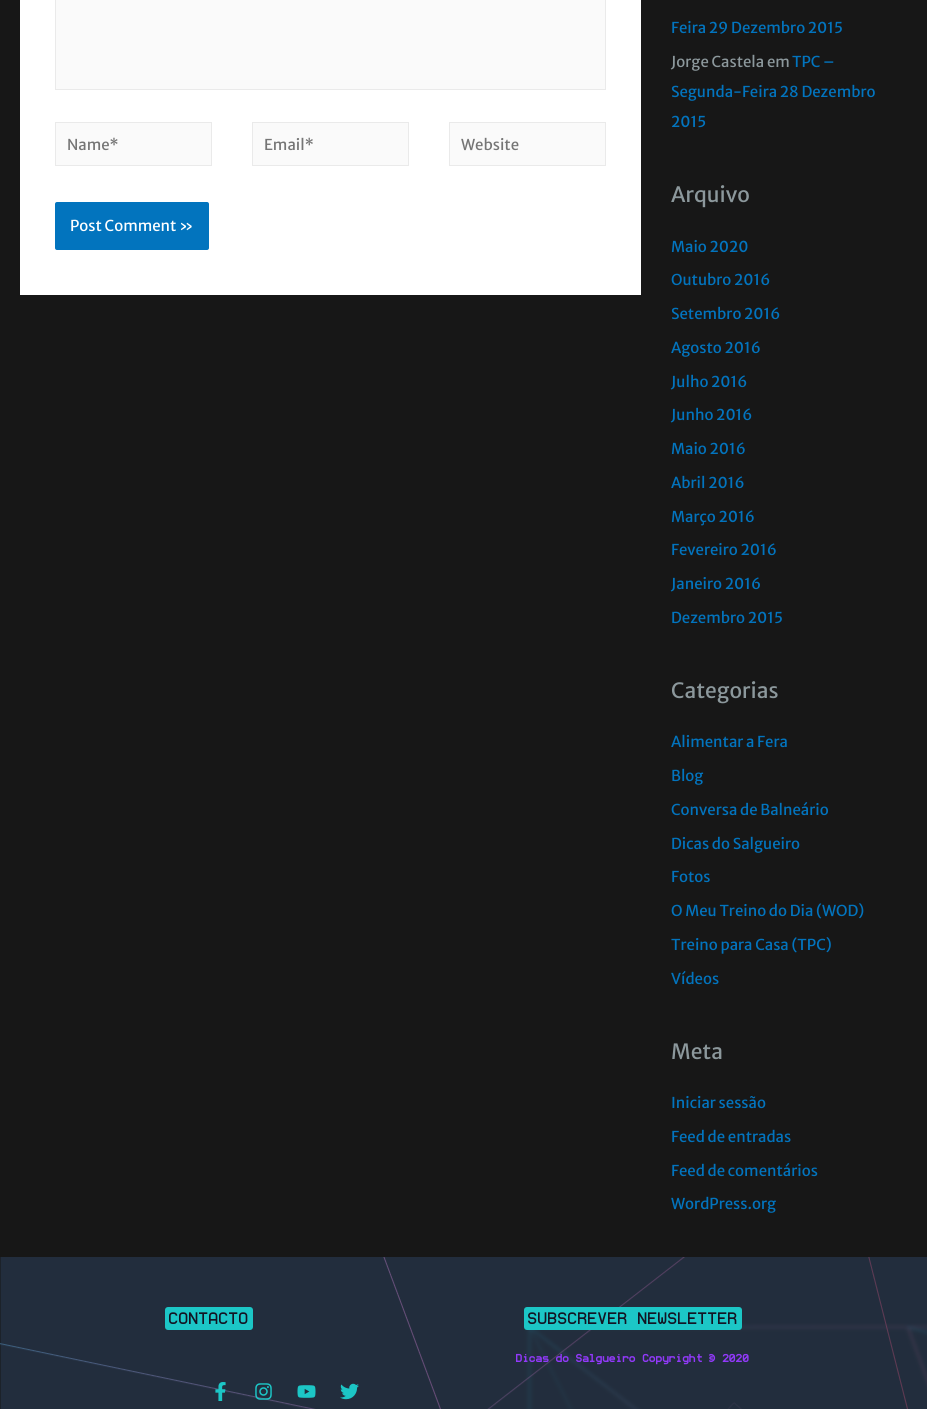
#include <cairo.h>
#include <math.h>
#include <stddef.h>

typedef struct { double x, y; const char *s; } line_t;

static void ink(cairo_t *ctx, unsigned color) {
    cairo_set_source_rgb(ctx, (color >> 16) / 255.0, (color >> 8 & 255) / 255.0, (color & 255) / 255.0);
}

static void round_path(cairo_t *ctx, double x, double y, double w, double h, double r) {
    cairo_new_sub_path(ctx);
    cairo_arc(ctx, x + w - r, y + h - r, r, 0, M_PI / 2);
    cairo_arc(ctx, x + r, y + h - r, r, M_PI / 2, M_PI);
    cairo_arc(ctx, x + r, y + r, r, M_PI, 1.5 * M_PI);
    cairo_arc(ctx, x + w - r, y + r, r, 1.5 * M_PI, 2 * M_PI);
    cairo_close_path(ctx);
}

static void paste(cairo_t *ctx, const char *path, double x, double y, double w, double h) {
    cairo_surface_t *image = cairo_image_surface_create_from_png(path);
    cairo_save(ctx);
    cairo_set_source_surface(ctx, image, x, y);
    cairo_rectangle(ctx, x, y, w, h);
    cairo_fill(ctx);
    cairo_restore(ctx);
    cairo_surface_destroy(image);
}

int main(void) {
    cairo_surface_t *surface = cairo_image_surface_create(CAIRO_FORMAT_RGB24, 927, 1409);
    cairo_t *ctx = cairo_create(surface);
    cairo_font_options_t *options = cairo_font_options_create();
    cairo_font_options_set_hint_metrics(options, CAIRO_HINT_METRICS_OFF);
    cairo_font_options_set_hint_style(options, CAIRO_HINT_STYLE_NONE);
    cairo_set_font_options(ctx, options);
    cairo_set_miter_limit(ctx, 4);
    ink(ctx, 0x171717);
    cairo_paint(ctx);
    ink(ctx, 0xFFFFFF);
    cairo_rectangle(ctx, 20, 0, 621, 295);
    cairo_fill(ctx);
    ink(ctx, 0xFAFAFA);
    cairo_rectangle(ctx, 55.5, -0.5, 550, 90);
    cairo_fill_preserve(ctx);
    ink(ctx, 0xEAEAEA);
    cairo_set_line_width(ctx, 1);
    cairo_stroke(ctx);
    ink(ctx, 0xFAFAFA);
    cairo_rectangle(ctx, 55.5, 122.5, 156, 43);
    cairo_fill_preserve(ctx);
    ink(ctx, 0xEAEAEA);
    cairo_stroke(ctx);
    cairo_select_font_face(ctx, "Merriweather Sans", CAIRO_FONT_SLANT_NORMAL, CAIRO_FONT_WEIGHT_NORMAL);
    cairo_set_font_size(ctx, 15);
    ink(ctx, 0x757575);
    cairo_move_to(ctx, 67, 150);
    cairo_show_text(ctx, "Name*");
    ink(ctx, 0xFAFAFA);
    cairo_rectangle(ctx, 252.5, 122.5, 156, 43);
    cairo_fill_preserve(ctx);
    ink(ctx, 0xEAEAEA);
    cairo_stroke(ctx);
    ink(ctx, 0x757575);
    cairo_move_to(ctx, 264, 150);
    cairo_show_text(ctx, "Email*");
    ink(ctx, 0xFAFAFA);
    cairo_rectangle(ctx, 449.5, 122.5, 156, 43);
    cairo_fill_preserve(ctx);
    ink(ctx, 0xEAEAEA);
    cairo_stroke(ctx);
    ink(ctx, 0x757575);
    cairo_move_to(ctx, 461, 150);
    cairo_show_text(ctx, "Website");
    ink(ctx, 0x0274BE);
    round_path(ctx, 55, 202, 154, 48, 2);
    cairo_fill(ctx);
    ink(ctx, 0xFFFFFF);
    cairo_move_to(ctx, 70, 231);
    cairo_show_text(ctx, "Post Comment »");
    ink(ctx, 0x0274BE);
    cairo_move_to(ctx, 671, 33);
    cairo_show_text(ctx, "Feira 29 Dezembro 2015");
    ink(ctx, 0x8C989C);
    cairo_move_to(ctx, 671, 67);
    cairo_show_text(ctx, "Jorge Castela em");
    ink(ctx, 0x0274BE);
    {
        static const line_t items[] = {
            {792, 67, "TPC –"},
            {671, 97, "Segunda-Feira 28 Dezembro"},
            {671, 127, "2015"},
        };
        for (size_t i = 0; i < sizeof items / sizeof *items; i++) {
            cairo_move_to(ctx, items[i].x, items[i].y);
            cairo_show_text(ctx, items[i].s);
        }
    }
    cairo_set_font_size(ctx, 21);
    ink(ctx, 0x8C989C);
    cairo_move_to(ctx, 671, 202);
    cairo_show_text(ctx, "Arquivo");
    cairo_set_font_size(ctx, 15);
    ink(ctx, 0x0274BE);
    {
        static const line_t items[] = {
            {671, 252, "Maio 2020"},
            {671, 285, "Outubro 2016"},
            {671, 319, "Setembro 2016"},
            {671, 353, "Agosto 2016"},
            {671, 387, "Julho 2016"},
            {671, 420, "Junho 2016"},
            {671, 454, "Maio 2016"},
            {671, 488, "Abril 2016"},
            {671, 522, "Março 2016"},
            {671, 555, "Fevereiro 2016"},
            {671, 589, "Janeiro 2016"},
            {671, 623, "Dezembro 2015"},
        };
        for (size_t i = 0; i < sizeof items / sizeof *items; i++) {
            cairo_move_to(ctx, items[i].x, items[i].y);
            cairo_show_text(ctx, items[i].s);
        }
    }
    cairo_set_font_size(ctx, 21);
    ink(ctx, 0x8C989C);
    cairo_move_to(ctx, 671, 698);
    cairo_show_text(ctx, "Categorias");
    cairo_set_font_size(ctx, 15);
    ink(ctx, 0x0274BE);
    {
        static const line_t items[] = {
            {671, 747, "Alimentar a Fera"},
            {671, 781, "Blog"},
            {671, 815, "Conversa de Balneário"},
            {671, 849, "Dicas do Salgueiro"},
            {671, 882, "Fotos"},
            {671, 916, "O Meu Treino do Dia (WOD)"},
            {671, 950, "Treino para Casa (TPC)"},
            {671, 984, "Vídeos"},
        };
        for (size_t i = 0; i < sizeof items / sizeof *items; i++) {
            cairo_move_to(ctx, items[i].x, items[i].y);
            cairo_show_text(ctx, items[i].s);
        }
    }
    cairo_set_font_size(ctx, 21);
    ink(ctx, 0x8C989C);
    cairo_move_to(ctx, 671, 1059);
    cairo_show_text(ctx, "Meta");
    cairo_set_font_size(ctx, 15);
    ink(ctx, 0x0274BE);
    {
        static const line_t items[] = {
            {671, 1108, "Iniciar sessão"},
            {671, 1142, "Feed de entradas"},
            {671, 1176, "Feed de comentários"},
            {671, 1209, "WordPress.org"},
        };
        for (size_t i = 0; i < sizeof items / sizeof *items; i++) {
            cairo_move_to(ctx, items[i].x, items[i].y);
            cairo_show_text(ctx, items[i].s);
        }
    }
    paste(ctx, "media/1.png", 0, 1257, 927, 152);
    ink(ctx, 0x1CC6C6);
    round_path(ctx, 165, 1307, 88, 23, 3);
    cairo_fill(ctx);
    cairo_select_font_face(ctx, "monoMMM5", CAIRO_FONT_SLANT_NORMAL, CAIRO_FONT_WEIGHT_NORMAL);
    ink(ctx, 0x131423);
    cairo_move_to(ctx, 169, 1324);
    cairo_show_text(ctx, "CONTACTO");
    ink(ctx, 0x1CC6C6);
    round_path(ctx, 524, 1307, 218, 23, 3);
    cairo_fill(ctx);
    ink(ctx, 0x131423);
    cairo_move_to(ctx, 528, 1324);
    cairo_show_text(ctx, "SUBSCREVER NEWSLETTER");
    cairo_select_font_face(ctx, "monoMMM5", CAIRO_FONT_SLANT_NORMAL, CAIRO_FONT_WEIGHT_BOLD);
    cairo_set_font_size(ctx, 10);
    ink(ctx, 0x9239FB);
    cairo_move_to(ctx, 516, 1362);
    cairo_show_text(ctx, "Dicas do Salgueiro Copyright © 2020");
    paste(ctx, "media/2.png", 215, 1382, 11, 19);
    paste(ctx, "media/3.png", 255, 1383, 17, 17);
    paste(ctx, "media/4.png", 297, 1385, 19, 13);
    paste(ctx, "media/5.png", 340, 1383, 19, 17);
    cairo_surface_write_to_png(surface, "image.png");
    cairo_font_options_destroy(options);
    cairo_destroy(ctx);
    cairo_surface_destroy(surface);
    return 0;
}
